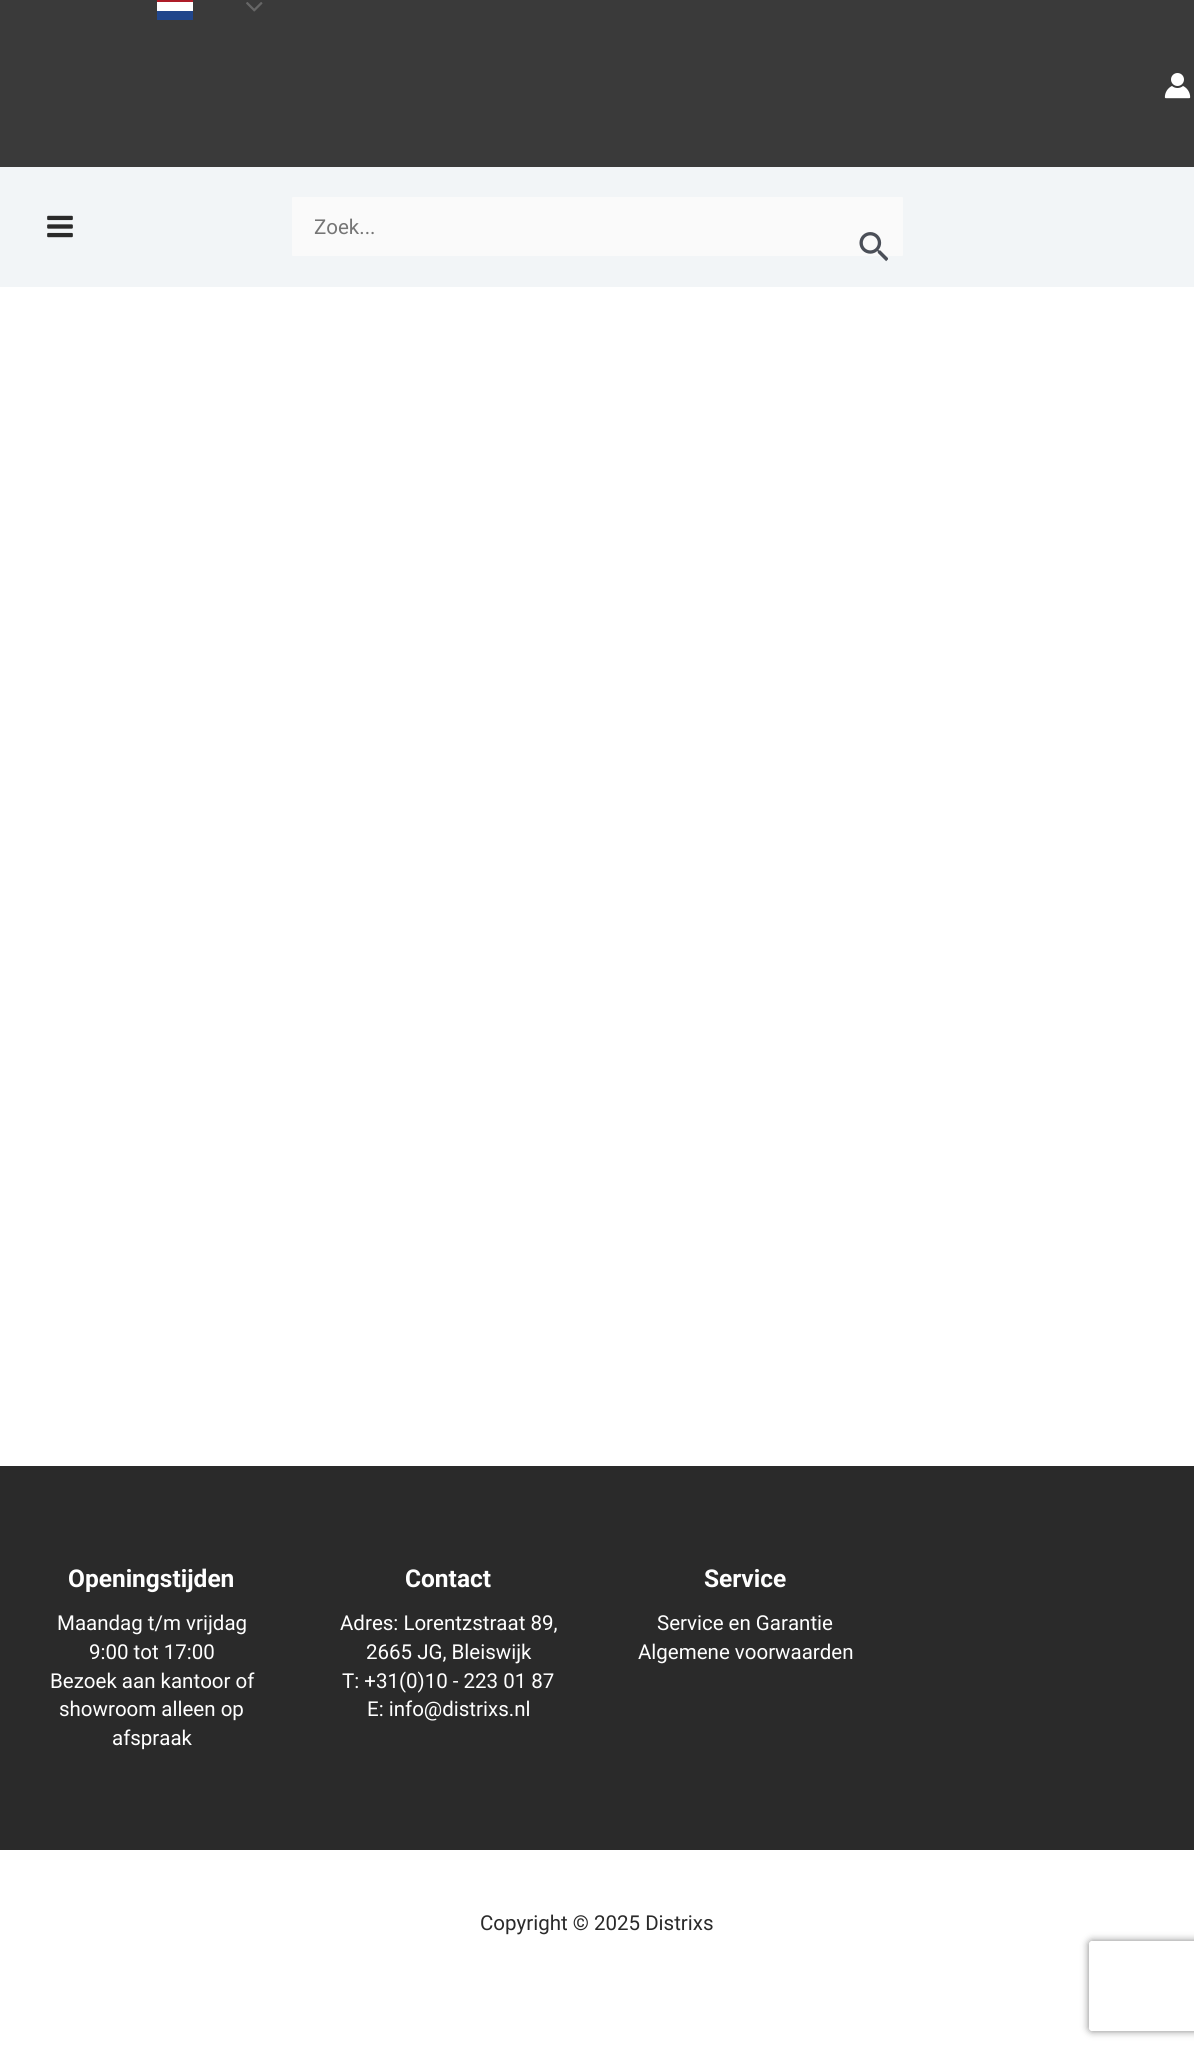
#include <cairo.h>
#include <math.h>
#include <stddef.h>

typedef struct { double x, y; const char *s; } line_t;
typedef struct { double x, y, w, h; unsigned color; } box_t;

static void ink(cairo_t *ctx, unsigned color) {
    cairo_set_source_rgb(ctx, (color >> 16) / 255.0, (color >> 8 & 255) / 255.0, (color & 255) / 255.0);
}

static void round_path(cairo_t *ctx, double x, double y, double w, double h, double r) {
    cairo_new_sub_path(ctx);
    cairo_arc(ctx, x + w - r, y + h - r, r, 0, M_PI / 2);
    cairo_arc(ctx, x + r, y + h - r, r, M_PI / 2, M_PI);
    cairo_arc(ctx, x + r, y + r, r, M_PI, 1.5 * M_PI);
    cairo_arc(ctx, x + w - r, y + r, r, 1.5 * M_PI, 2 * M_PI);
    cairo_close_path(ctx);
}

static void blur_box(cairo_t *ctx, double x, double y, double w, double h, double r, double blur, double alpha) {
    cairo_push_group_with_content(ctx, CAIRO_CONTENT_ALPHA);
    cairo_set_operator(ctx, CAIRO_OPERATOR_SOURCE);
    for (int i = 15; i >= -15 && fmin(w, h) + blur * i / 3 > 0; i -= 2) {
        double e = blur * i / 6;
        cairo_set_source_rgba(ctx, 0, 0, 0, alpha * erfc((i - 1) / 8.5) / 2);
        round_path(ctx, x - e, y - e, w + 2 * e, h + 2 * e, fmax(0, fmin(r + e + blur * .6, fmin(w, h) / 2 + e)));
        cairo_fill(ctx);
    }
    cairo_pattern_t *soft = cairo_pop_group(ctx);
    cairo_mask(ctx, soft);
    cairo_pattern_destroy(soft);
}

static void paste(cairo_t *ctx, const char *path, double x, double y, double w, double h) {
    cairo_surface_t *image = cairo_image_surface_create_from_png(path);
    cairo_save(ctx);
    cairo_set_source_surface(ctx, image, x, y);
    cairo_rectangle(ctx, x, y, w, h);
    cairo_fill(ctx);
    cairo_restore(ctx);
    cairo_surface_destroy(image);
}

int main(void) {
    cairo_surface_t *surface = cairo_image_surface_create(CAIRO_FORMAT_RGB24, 1194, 2052);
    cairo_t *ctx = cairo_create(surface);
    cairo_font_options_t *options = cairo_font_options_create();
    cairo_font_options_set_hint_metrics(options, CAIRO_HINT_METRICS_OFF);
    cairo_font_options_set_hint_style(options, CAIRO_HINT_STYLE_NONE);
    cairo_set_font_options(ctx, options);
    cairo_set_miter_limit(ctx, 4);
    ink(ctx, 0xFFFFFF);
    cairo_paint(ctx);
    {
        static const box_t items[] = {
            {0, 0, 1194, 167, 0x3A3A3A},
            {157, 2, 36, 9, 0xFFFFFF},
            {157, 11, 36, 9, 0x21468B},
            {157, 0, 36, 2, 0xAE1C28},
        };
        for (size_t i = 0; i < sizeof items / sizeof *items; i++) {
            ink(ctx, items[i].color);
            cairo_rectangle(ctx, items[i].x, items[i].y, items[i].w, items[i].h);
            cairo_fill(ctx);
        }
    }
    paste(ctx, "media/1.png", 246, 2, 17, 10);
    paste(ctx, "media/2.png", 1164, 73, 27, 26);
    ink(ctx, 0xF2F5F7);
    cairo_rectangle(ctx, 0, 167, 1194, 120);
    cairo_fill(ctx);
    paste(ctx, "media/3.png", 47, 215, 26, 23);
    ink(ctx, 0xFAFAFA);
    round_path(ctx, 291, 196, 613, 61, 2);
    cairo_fill_preserve(ctx);
    ink(ctx, 0xF2F5F7);
    cairo_stroke(ctx);
    cairo_select_font_face(ctx, "Roboto", CAIRO_FONT_SLANT_NORMAL, CAIRO_FONT_WEIGHT_NORMAL);
    cairo_set_font_size(ctx, 20.5);
    ink(ctx, 0x757575);
    cairo_move_to(ctx, 314, 234);
    cairo_show_text(ctx, "Zoek...");
    paste(ctx, "media/4.png", 859, 232, 29, 30);
    ink(ctx, 0x2A2A2A);
    cairo_rectangle(ctx, 0, 1466, 1194, 384);
    cairo_fill(ctx);
    cairo_select_font_face(ctx, "Roboto", CAIRO_FONT_SLANT_NORMAL, CAIRO_FONT_WEIGHT_BOLD);
    cairo_set_font_size(ctx, 24.5);
    ink(ctx, 0xFFFFFF);
    cairo_move_to(ctx, 68, 1587);
    cairo_show_text(ctx, "Openingstijden");
    cairo_select_font_face(ctx, "Roboto", CAIRO_FONT_SLANT_NORMAL, CAIRO_FONT_WEIGHT_NORMAL);
    cairo_set_font_size(ctx, 20.5);
    {
        static const line_t items[] = {
            {57, 1630, "Maandag t/m vrijdag"},
            {89, 1659, "9:00 tot 17:00"},
            {50, 1688, "Bezoek aan kantoor of"},
            {59, 1716, "showroom alleen op"},
            {112, 1745, "afspraak"},
        };
        for (size_t i = 0; i < sizeof items / sizeof *items; i++) {
            cairo_move_to(ctx, items[i].x, items[i].y);
            cairo_show_text(ctx, items[i].s);
        }
    }
    cairo_select_font_face(ctx, "Roboto", CAIRO_FONT_SLANT_NORMAL, CAIRO_FONT_WEIGHT_BOLD);
    cairo_set_font_size(ctx, 24.5);
    cairo_move_to(ctx, 405, 1587);
    cairo_show_text(ctx, "Contact");
    cairo_select_font_face(ctx, "Roboto", CAIRO_FONT_SLANT_NORMAL, CAIRO_FONT_WEIGHT_NORMAL);
    cairo_set_font_size(ctx, 20.5);
    {
        static const line_t items[] = {
            {340, 1630, "Adres: Lorentzstraat 89,"},
            {366, 1659, "2665 JG, Bleiswijk"},
            {342, 1688, "T: +31(0)10 - 223 01 87"},
            {367, 1716, "E: info@distrixs.nl"},
        };
        for (size_t i = 0; i < sizeof items / sizeof *items; i++) {
            cairo_move_to(ctx, items[i].x, items[i].y);
            cairo_show_text(ctx, items[i].s);
        }
    }
    cairo_select_font_face(ctx, "Roboto", CAIRO_FONT_SLANT_NORMAL, CAIRO_FONT_WEIGHT_BOLD);
    cairo_set_font_size(ctx, 24.5);
    cairo_move_to(ctx, 704, 1587);
    cairo_show_text(ctx, "Service");
    cairo_select_font_face(ctx, "Roboto", CAIRO_FONT_SLANT_NORMAL, CAIRO_FONT_WEIGHT_NORMAL);
    cairo_set_font_size(ctx, 20.5);
    cairo_move_to(ctx, 657, 1630);
    cairo_show_text(ctx, "Service en Garantie");
    cairo_move_to(ctx, 638, 1659);
    cairo_show_text(ctx, "Algemene voorwaarden");
    ink(ctx, 0x2A2A2A);
    cairo_move_to(ctx, 480, 1930);
    cairo_show_text(ctx, "Copyright © 2025 Distrixs");
    cairo_save(ctx);
    cairo_set_fill_rule(ctx, CAIRO_FILL_RULE_EVEN_ODD);
    cairo_new_path(ctx);
    cairo_move_to(ctx, 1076, 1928);
    cairo_line_to(ctx, 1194, 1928);
    cairo_line_to(ctx, 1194, 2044);
    cairo_line_to(ctx, 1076, 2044);
    cairo_close_path(ctx);
    cairo_move_to(ctx, 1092, 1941);
    cairo_line_to(ctx, 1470, 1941);
    cairo_curve_to(ctx, 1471.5, 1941, 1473, 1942.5, 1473, 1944);
    cairo_line_to(ctx, 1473, 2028);
    cairo_curve_to(ctx, 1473, 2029.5, 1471.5, 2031, 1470, 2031);
    cairo_line_to(ctx, 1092, 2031);
    cairo_curve_to(ctx, 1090.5, 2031, 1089, 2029.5, 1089, 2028);
    cairo_line_to(ctx, 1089, 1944);
    cairo_curve_to(ctx, 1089, 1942.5, 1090.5, 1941, 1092, 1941);
    cairo_close_path(ctx);
    cairo_clip(ctx);
    ink(ctx, 0x808080);
    blur_box(ctx, 1089, 1941, 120, 90, 3, 4, 1);
    cairo_restore(ctx);
    cairo_surface_write_to_png(surface, "image.png");
    cairo_font_options_destroy(options);
    cairo_destroy(ctx);
    cairo_surface_destroy(surface);
    return 0;
}
